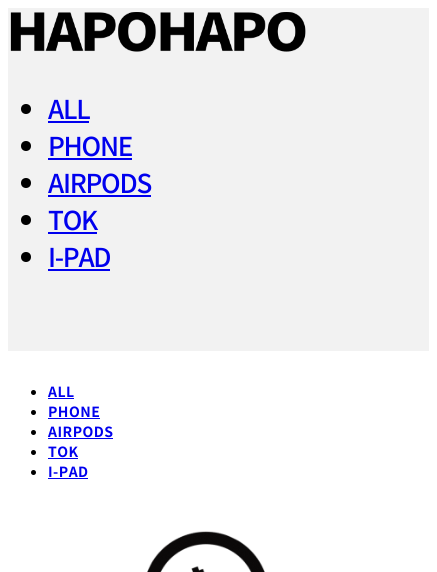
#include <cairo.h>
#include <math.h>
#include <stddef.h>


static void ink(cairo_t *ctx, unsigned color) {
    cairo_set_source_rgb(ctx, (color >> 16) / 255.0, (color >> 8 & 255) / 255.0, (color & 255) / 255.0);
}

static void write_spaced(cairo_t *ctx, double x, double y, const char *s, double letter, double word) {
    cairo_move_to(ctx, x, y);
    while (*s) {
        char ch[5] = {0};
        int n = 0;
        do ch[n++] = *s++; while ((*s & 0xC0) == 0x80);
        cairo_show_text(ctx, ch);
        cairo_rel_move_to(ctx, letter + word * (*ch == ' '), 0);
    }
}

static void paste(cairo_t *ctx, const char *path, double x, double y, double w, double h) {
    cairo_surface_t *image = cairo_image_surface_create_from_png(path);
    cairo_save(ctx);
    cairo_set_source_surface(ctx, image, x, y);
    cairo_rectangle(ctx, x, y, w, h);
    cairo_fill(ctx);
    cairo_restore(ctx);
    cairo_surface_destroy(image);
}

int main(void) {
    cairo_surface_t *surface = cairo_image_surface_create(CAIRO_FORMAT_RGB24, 437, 572);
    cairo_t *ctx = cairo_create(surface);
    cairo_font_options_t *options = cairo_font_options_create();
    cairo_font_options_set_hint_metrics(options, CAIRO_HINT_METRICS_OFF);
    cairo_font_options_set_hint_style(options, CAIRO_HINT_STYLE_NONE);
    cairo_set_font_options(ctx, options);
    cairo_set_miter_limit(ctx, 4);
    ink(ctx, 0xFFFFFF);
    cairo_paint(ctx);
    ink(ctx, 0xF2F2F2);
    cairo_rectangle(ctx, 8, 8, 421, 343);
    cairo_fill(ctx);
    paste(ctx, "media/1.png", 10, 12, 296, 40);
    ink(ctx, 0x000000);
    cairo_arc(ctx, 26, 109, 5, 0, 2 * M_PI);
    cairo_fill(ctx);
    cairo_select_font_face(ctx, "Noto Sans KR Medium", CAIRO_FONT_SLANT_NORMAL, CAIRO_FONT_WEIGHT_NORMAL);
    cairo_set_font_size(ctx, 26);
    ink(ctx, 0x0000EE);
    write_spaced(ctx, 48, 119, "ALL", -1.25, 0);
    cairo_rectangle(ctx, 48, 121, 41, 2);
    cairo_fill(ctx);
    ink(ctx, 0x000000);
    cairo_arc(ctx, 26, 146, 5, 0, 2 * M_PI);
    cairo_fill(ctx);
    ink(ctx, 0x0000EE);
    write_spaced(ctx, 48, 156, "PHONE", -1.25, 0);
    cairo_rectangle(ctx, 48, 158, 84, 2);
    cairo_fill(ctx);
    ink(ctx, 0x000000);
    cairo_arc(ctx, 26, 183, 5, 0, 2 * M_PI);
    cairo_fill(ctx);
    ink(ctx, 0x0000EE);
    write_spaced(ctx, 48, 193, "AIRPODS", -1.25, 0);
    cairo_rectangle(ctx, 48, 195, 103, 2);
    cairo_fill(ctx);
    ink(ctx, 0x000000);
    cairo_arc(ctx, 26, 220, 5, 0, 2 * M_PI);
    cairo_fill(ctx);
    ink(ctx, 0x0000EE);
    write_spaced(ctx, 48, 230, "TOK", -1.25, 0);
    cairo_rectangle(ctx, 48, 232, 49, 2);
    cairo_fill(ctx);
    ink(ctx, 0x000000);
    cairo_arc(ctx, 26, 257, 5, 0, 2 * M_PI);
    cairo_fill(ctx);
    ink(ctx, 0x0000EE);
    write_spaced(ctx, 48, 267, "I-PAD", -1.25, 0);
    cairo_rectangle(ctx, 48, 269, 62, 2);
    cairo_fill(ctx);
    ink(ctx, 0x000000);
    cairo_arc(ctx, 33.5, 392.5, 2.5, 0, 2 * M_PI);
    cairo_fill(ctx);
    cairo_select_font_face(ctx, "Noto Sans KR", CAIRO_FONT_SLANT_NORMAL, CAIRO_FONT_WEIGHT_BOLD);
    cairo_set_font_size(ctx, 14);
    ink(ctx, 0x0000EE);
    write_spaced(ctx, 48, 397, "ALL", 0.5, 0);
    cairo_rectangle(ctx, 48, 398, 26, 1);
    cairo_fill(ctx);
    ink(ctx, 0x000000);
    cairo_arc(ctx, 33.5, 412.5, 2.5, 0, 2 * M_PI);
    cairo_fill(ctx);
    ink(ctx, 0x0000EE);
    write_spaced(ctx, 48, 417, "PHONE", 0.5, 0);
    cairo_rectangle(ctx, 48, 418, 52, 1);
    cairo_fill(ctx);
    ink(ctx, 0x000000);
    cairo_arc(ctx, 33.5, 432.5, 2.5, 0, 2 * M_PI);
    cairo_fill(ctx);
    ink(ctx, 0x0000EE);
    write_spaced(ctx, 48, 437, "AIRPODS", 0.5, 0);
    cairo_rectangle(ctx, 48, 438, 65, 1);
    cairo_fill(ctx);
    ink(ctx, 0x000000);
    cairo_arc(ctx, 33.5, 452.5, 2.5, 0, 2 * M_PI);
    cairo_fill(ctx);
    ink(ctx, 0x0000EE);
    write_spaced(ctx, 48, 457, "TOK", 0.5, 0);
    cairo_rectangle(ctx, 48, 458, 30, 1);
    cairo_fill(ctx);
    ink(ctx, 0x000000);
    cairo_arc(ctx, 33.5, 472.5, 2.5, 0, 2 * M_PI);
    cairo_fill(ctx);
    ink(ctx, 0x0000EE);
    write_spaced(ctx, 48, 477, "I-PAD", 0.5, 0);
    cairo_rectangle(ctx, 48, 478, 40, 1);
    cairo_fill(ctx);
    paste(ctx, "media/2.png", 147, 531, 118, 41);
    cairo_surface_write_to_png(surface, "image.png");
    cairo_font_options_destroy(options);
    cairo_destroy(ctx);
    cairo_surface_destroy(surface);
    return 0;
}
